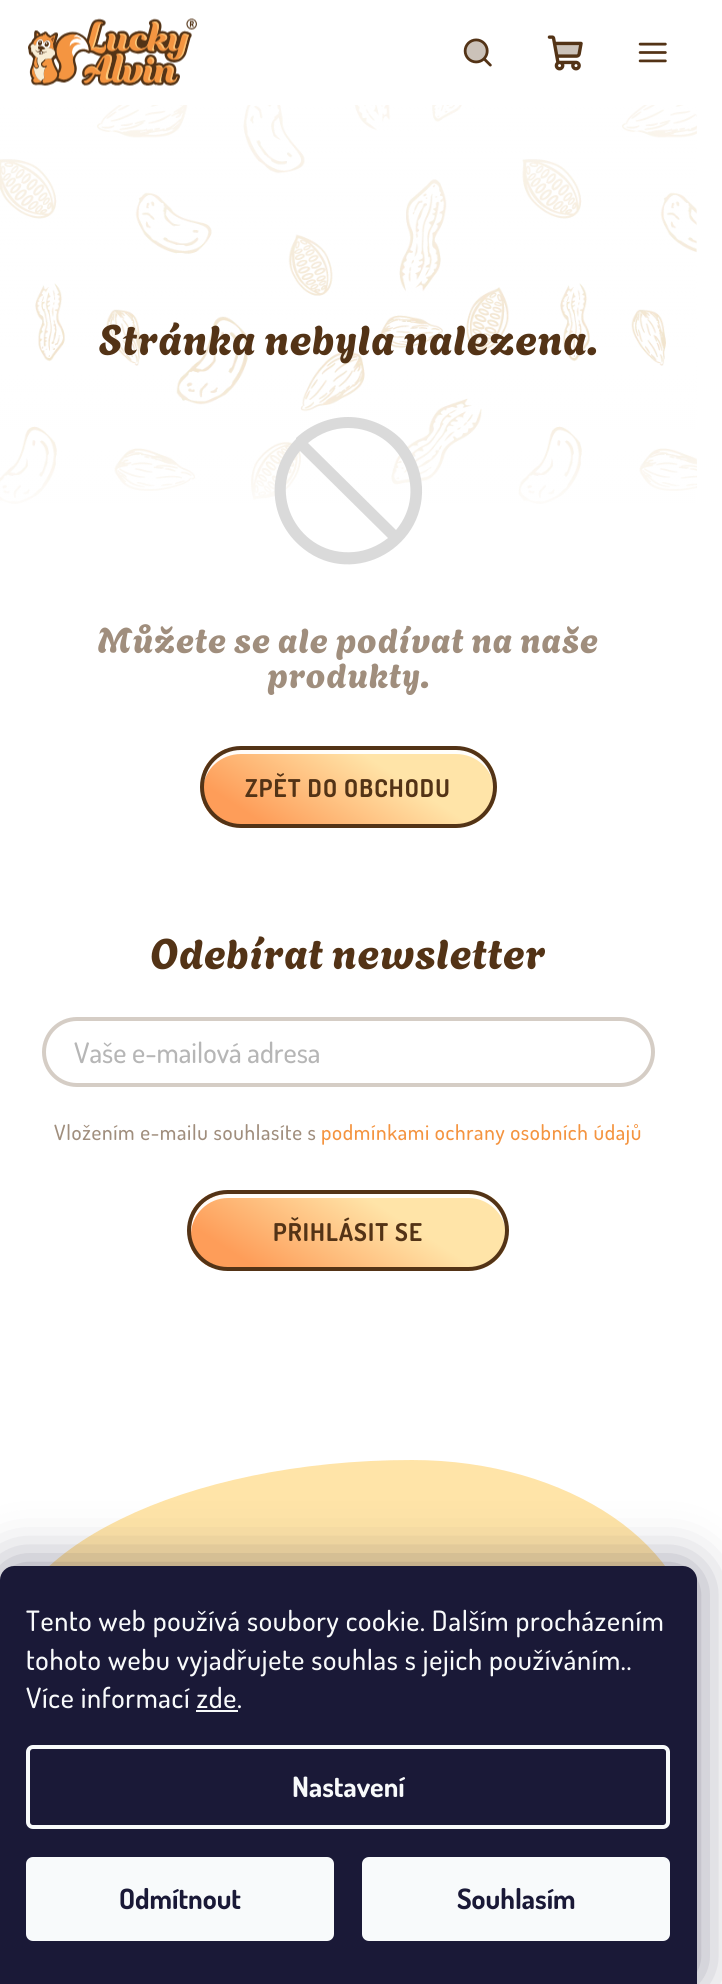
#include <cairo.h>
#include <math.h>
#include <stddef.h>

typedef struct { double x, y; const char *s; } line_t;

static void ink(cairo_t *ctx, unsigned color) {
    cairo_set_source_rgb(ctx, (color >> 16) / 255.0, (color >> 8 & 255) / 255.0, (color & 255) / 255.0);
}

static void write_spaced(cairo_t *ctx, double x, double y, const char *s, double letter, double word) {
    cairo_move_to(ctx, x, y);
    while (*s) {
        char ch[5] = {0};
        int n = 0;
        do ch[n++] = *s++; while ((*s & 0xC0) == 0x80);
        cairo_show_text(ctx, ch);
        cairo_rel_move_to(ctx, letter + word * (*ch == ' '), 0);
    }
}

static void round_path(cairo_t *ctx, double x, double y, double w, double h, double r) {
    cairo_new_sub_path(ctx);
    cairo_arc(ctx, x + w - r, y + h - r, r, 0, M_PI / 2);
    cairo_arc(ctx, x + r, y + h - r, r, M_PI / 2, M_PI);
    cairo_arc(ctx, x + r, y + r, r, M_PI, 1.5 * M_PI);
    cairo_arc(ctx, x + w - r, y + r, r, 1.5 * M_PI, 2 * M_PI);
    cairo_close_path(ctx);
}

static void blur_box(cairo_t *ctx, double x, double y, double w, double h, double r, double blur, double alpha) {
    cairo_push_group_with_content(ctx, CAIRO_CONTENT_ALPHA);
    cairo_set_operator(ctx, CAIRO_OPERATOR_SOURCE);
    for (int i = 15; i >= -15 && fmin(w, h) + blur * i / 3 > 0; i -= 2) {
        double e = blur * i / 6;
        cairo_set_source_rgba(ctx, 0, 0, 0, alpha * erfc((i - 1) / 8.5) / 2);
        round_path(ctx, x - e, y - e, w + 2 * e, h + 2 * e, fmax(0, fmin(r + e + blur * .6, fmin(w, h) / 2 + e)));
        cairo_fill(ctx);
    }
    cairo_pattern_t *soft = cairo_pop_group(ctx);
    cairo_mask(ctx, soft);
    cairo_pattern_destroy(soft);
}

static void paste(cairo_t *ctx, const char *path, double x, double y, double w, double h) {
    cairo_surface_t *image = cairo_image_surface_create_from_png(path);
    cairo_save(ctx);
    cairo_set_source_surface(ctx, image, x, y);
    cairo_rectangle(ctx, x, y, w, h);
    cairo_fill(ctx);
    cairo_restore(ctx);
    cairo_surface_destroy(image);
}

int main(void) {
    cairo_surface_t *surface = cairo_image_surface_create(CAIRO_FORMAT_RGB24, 722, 1984);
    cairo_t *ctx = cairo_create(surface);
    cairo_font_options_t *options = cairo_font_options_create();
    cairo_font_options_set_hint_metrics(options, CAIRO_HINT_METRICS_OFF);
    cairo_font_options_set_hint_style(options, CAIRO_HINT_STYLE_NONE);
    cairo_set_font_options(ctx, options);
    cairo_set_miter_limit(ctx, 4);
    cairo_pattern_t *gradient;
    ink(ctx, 0xFFFFFF);
    cairo_paint(ctx);
    paste(ctx, "media/1.png", 0, 105, 697, 399);
    paste(ctx, "media/2.png", 28, 18, 169, 68);
    paste(ctx, "media/3.png", 463, 38, 29, 29);
    cairo_set_source_rgba(ctx, 0.325, 0.2, 0.086, 0.3);
    cairo_new_path(ctx);
    cairo_move_to(ctx, 476, 62);
    cairo_curve_to(ctx, 490.5, 62, 490.5, 40, 476, 40);
    cairo_curve_to(ctx, 461.5, 40, 461.5, 62, 476, 62);
    cairo_close_path(ctx);
    cairo_fill(ctx);
    paste(ctx, "media/4.png", 547, 35, 36, 36);
    cairo_new_path(ctx);
    cairo_move_to(ctx, 557, 56);
    cairo_line_to(ctx, 573.5, 56);
    cairo_curve_to(ctx, 578, 56, 578.5, 56.5, 579.5, 52.5);
    cairo_line_to(ctx, 581, 43.5);
    cairo_line_to(ctx, 554.5, 43.5);
    cairo_close_path(ctx);
    cairo_fill(ctx);
    paste(ctx, "media/5.png", 638, 42, 29, 21);
    cairo_select_font_face(ctx, "Agbalumo", CAIRO_FONT_SLANT_NORMAL, CAIRO_FONT_WEIGHT_NORMAL);
    cairo_set_font_size(ctx, 42);
    ink(ctx, 0x533316);
    write_spaced(ctx, 99, 355, "Stránka nebyla nalezena.", 0.6, 0);
    ink(ctx, 0xDADADA);
    cairo_new_path(ctx);
    cairo_move_to(ctx, 348, 417);
    cairo_curve_to(ctx, 329, 417, 310, 425, 296, 438);
    cairo_line_to(ctx, 296, 439);
    cairo_curve_to(ctx, 267, 468, 267, 516, 299, 545);
    cairo_curve_to(ctx, 348, 590, 425, 551, 422, 487);
    cairo_curve_to(ctx, 421, 470, 414, 454, 403, 441);
    cairo_curve_to(ctx, 389, 426, 369, 417, 348, 417);
    cairo_close_path(ctx);
    cairo_move_to(ctx, 348, 428);
    cairo_curve_to(ctx, 400, 428, 430, 490, 396, 530);
    cairo_line_to(ctx, 308, 443);
    cairo_curve_to(ctx, 320, 433, 334, 428, 348, 428);
    cairo_close_path(ctx);
    cairo_move_to(ctx, 300, 451);
    cairo_line_to(ctx, 388, 538);
    cairo_curve_to(ctx, 378, 546, 366, 551, 354, 552);
    cairo_curve_to(ctx, 299, 557, 265, 493, 300, 451);
    cairo_close_path(ctx);
    cairo_fill(ctx);
    cairo_set_font_size(ctx, 35);
    ink(ctx, 0xA08E7D);
    write_spaced(ctx, 97, 653, "Můžete se ale podívat na naše", 0.7, 0);
    write_spaced(ctx, 267, 688, "produkty.", 0.7, 0);
    cairo_save(ctx);
    round_path(ctx, 200, 746, 297, 82, 41);
    cairo_clip(ctx);
    gradient = cairo_pattern_create_linear(288, 879, 409, 694);
    cairo_pattern_add_color_stop_rgba(gradient, 0.15, 0.996, 0.616, 0.349, 1);
    cairo_pattern_add_color_stop_rgba(gradient, 0.66, 1, 0.894, 0.659, 1);
    cairo_set_source(ctx, gradient);
    cairo_pattern_destroy(gradient);
    cairo_rectangle(ctx, 203, 749, 291, 75);
    cairo_fill(ctx);
    cairo_restore(ctx);
    cairo_set_source_rgba(ctx, 1, 1, 1, 0.95);
    cairo_new_path(ctx);
    cairo_move_to(ctx, 241, 754);
    cairo_line_to(ctx, 456, 754);
    cairo_curve_to(ctx, 476, 754, 493, 769, 494, 789);
    cairo_line_to(ctx, 494, 786);
    cairo_curve_to(ctx, 494, 766, 477, 749, 456, 749);
    cairo_line_to(ctx, 240, 749);
    cairo_curve_to(ctx, 220, 749, 203, 766, 203, 786);
    cairo_line_to(ctx, 203, 789);
    cairo_curve_to(ctx, 204, 769, 221, 754, 241, 754);
    cairo_close_path(ctx);
    cairo_fill(ctx);
    round_path(ctx, 202, 748, 293, 78, 39);
    ink(ctx, 0x533316);
    cairo_set_line_width(ctx, 4);
    cairo_stroke(ctx);
    cairo_select_font_face(ctx, "Dosis", CAIRO_FONT_SLANT_NORMAL, CAIRO_FONT_WEIGHT_BOLD);
    cairo_set_font_size(ctx, 24.5);
    write_spaced(ctx, 245, 797, "ZPĚT DO OBCHODU", 1.1, 0);
    cairo_select_font_face(ctx, "Agbalumo", CAIRO_FONT_SLANT_NORMAL, CAIRO_FONT_WEIGHT_NORMAL);
    cairo_set_font_size(ctx, 42);
    write_spaced(ctx, 150, 969, "Odebírat newsletter", 0.6, 0);
    round_path(ctx, 44, 1019, 609, 66, 33);
    ink(ctx, 0xD5CDC5);
    cairo_stroke(ctx);
    cairo_select_font_face(ctx, "Dosis Medium", CAIRO_FONT_SLANT_NORMAL, CAIRO_FONT_WEIGHT_NORMAL);
    cairo_set_font_size(ctx, 28.25);
    ink(ctx, 0xB6B6B6);
    cairo_move_to(ctx, 74, 1063);
    cairo_show_text(ctx, "Vaše e-mailová adresa");
    cairo_set_font_size(ctx, 21);
    ink(ctx, 0xA08E7D);
    write_spaced(ctx, 54, 1140, "Vložením e-mailu souhlasíte s", 0.7, 0);
    ink(ctx, 0xF49440);
    write_spaced(ctx, 321, 1140, "podmínkami ochrany osobních údajů", 0.7, 0);
    cairo_save(ctx);
    round_path(ctx, 187, 1190, 322, 81, 40.5);
    cairo_clip(ctx);
    gradient = cairo_pattern_create_linear(285, 1328, 412, 1132);
    cairo_pattern_add_color_stop_rgba(gradient, 0.15, 0.996, 0.616, 0.349, 1);
    cairo_pattern_add_color_stop_rgba(gradient, 0.66, 1, 0.894, 0.659, 1);
    cairo_set_source(ctx, gradient);
    cairo_pattern_destroy(gradient);
    cairo_rectangle(ctx, 191, 1194, 315, 73);
    cairo_fill(ctx);
    cairo_restore(ctx);
    cairo_set_source_rgba(ctx, 1, 1, 1, 0.95);
    cairo_new_path(ctx);
    cairo_move_to(ctx, 228, 1198);
    cairo_line_to(ctx, 469, 1198);
    cairo_curve_to(ctx, 488, 1198, 505, 1214, 506, 1233);
    cairo_line_to(ctx, 506, 1230);
    cairo_curve_to(ctx, 506, 1210, 490, 1194, 470, 1194);
    cairo_line_to(ctx, 228, 1194);
    cairo_curve_to(ctx, 207, 1194, 191, 1210, 191, 1230);
    cairo_line_to(ctx, 191, 1233);
    cairo_curve_to(ctx, 192, 1214, 208, 1198, 228, 1198);
    cairo_close_path(ctx);
    cairo_fill(ctx);
    round_path(ctx, 189, 1192, 318, 77, 38.5);
    ink(ctx, 0x533316);
    cairo_stroke(ctx);
    cairo_select_font_face(ctx, "Dosis", CAIRO_FONT_SLANT_NORMAL, CAIRO_FONT_WEIGHT_BOLD);
    cairo_set_font_size(ctx, 24.5);
    write_spaced(ctx, 273, 1241, "PŘIHLÁSIT SE", 1.1, 0);
    ink(ctx, 0xFFE4A8);
    cairo_new_path(ctx);
    cairo_move_to(ctx, 412, 1460);
    cairo_curve_to(ctx, 569, 1460, 696, 1547, 696, 1654);
    cairo_line_to(ctx, 696, 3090);
    cairo_line_to(ctx, 0, 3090);
    cairo_line_to(ctx, 0, 1662);
    cairo_curve_to(ctx, 0, 1550, 185, 1460, 412, 1460);
    cairo_close_path(ctx);
    cairo_fill(ctx);
    ink(ctx, 0x1B1939);
    blur_box(ctx, 0, 1566, 697, 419, 14, 26, 0.5);
    ink(ctx, 0x1A1937);
    cairo_new_path(ctx);
    cairo_move_to(ctx, 14, 1566);
    cairo_line_to(ctx, 683, 1566);
    cairo_curve_to(ctx, 690.5, 1566, 697, 1572.5, 697, 1580);
    cairo_line_to(ctx, 697, 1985);
    cairo_line_to(ctx, 0, 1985);
    cairo_line_to(ctx, 0, 1580);
    cairo_curve_to(ctx, 0, 1572.5, 6.5, 1566, 14, 1566);
    cairo_close_path(ctx);
    cairo_fill(ctx);
    cairo_select_font_face(ctx, "Dosis Medium", CAIRO_FONT_SLANT_NORMAL, CAIRO_FONT_WEIGHT_NORMAL);
    cairo_set_font_size(ctx, 28);
    ink(ctx, 0xF8FAFB);
    {
        static const line_t items[] = {
            {26, 1631, "Tento web používá soubory cookie. Dalším procházením"},
            {26, 1670, "tohoto webu vyjadřujete souhlas s jejich používáním.."},
            {26, 1708, "Více informací zde."},
        };
        for (size_t i = 0; i < sizeof items / sizeof *items; i++) {
            write_spaced(ctx, items[i].x, items[i].y, items[i].s, 0.7, 0);
        }
    }
    cairo_rectangle(ctx, 196, 1710, 42, 2);
    cairo_fill(ctx);
    round_path(ctx, 28, 1747, 640, 80, 5);
    cairo_stroke(ctx);
    cairo_select_font_face(ctx, "Dosis", CAIRO_FONT_SLANT_NORMAL, CAIRO_FONT_WEIGHT_BOLD);
    cairo_move_to(ctx, 292, 1797);
    cairo_show_text(ctx, "Nastavení");
    round_path(ctx, 26, 1857, 308, 84, 7);
    cairo_fill(ctx);
    ink(ctx, 0x1A1937);
    cairo_move_to(ctx, 119, 1909);
    cairo_show_text(ctx, "Odmítnout");
    ink(ctx, 0xF8FAFB);
    round_path(ctx, 362, 1857, 308, 84, 7);
    cairo_fill(ctx);
    ink(ctx, 0x1A1937);
    cairo_move_to(ctx, 457, 1909);
    cairo_show_text(ctx, "Souhlasím");
    cairo_surface_write_to_png(surface, "image.png");
    cairo_font_options_destroy(options);
    cairo_destroy(ctx);
    cairo_surface_destroy(surface);
    return 0;
}
